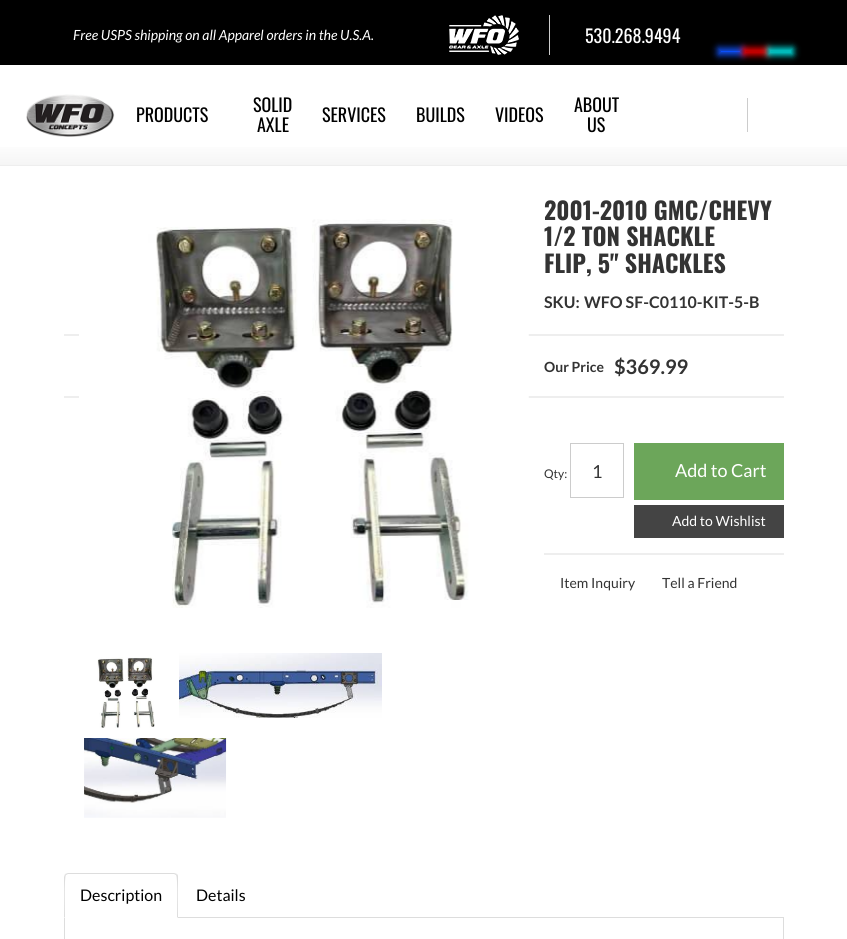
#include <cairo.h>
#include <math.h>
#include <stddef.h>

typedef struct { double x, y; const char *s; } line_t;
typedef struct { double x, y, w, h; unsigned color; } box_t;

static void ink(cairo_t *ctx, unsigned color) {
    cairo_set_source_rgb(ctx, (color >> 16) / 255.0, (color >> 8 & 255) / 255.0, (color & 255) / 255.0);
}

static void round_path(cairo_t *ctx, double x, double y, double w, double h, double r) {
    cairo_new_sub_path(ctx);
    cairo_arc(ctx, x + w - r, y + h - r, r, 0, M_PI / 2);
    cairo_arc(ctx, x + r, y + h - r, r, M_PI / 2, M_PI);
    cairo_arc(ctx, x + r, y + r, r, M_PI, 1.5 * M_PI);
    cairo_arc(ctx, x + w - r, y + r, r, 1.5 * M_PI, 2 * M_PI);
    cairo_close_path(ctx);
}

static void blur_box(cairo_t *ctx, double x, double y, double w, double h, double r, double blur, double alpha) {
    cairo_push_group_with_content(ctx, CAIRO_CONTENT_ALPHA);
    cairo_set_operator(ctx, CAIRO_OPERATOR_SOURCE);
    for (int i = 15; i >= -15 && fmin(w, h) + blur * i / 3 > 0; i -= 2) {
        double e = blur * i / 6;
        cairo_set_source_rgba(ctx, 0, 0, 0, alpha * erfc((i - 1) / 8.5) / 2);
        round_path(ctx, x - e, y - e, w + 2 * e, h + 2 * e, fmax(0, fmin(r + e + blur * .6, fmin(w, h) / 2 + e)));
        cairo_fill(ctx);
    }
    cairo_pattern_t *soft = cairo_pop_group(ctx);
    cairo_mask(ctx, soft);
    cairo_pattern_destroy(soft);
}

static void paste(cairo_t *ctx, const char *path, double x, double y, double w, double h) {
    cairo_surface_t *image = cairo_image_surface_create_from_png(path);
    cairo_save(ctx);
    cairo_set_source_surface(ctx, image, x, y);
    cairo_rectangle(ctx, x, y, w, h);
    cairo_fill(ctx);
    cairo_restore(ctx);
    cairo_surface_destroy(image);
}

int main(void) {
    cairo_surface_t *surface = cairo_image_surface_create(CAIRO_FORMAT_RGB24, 847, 939);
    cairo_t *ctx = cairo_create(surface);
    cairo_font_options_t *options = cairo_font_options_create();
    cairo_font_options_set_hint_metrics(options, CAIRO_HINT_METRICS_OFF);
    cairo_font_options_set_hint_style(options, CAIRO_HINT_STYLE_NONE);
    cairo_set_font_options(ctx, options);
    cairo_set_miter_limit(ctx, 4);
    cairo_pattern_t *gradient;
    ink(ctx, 0xFFFFFF);
    cairo_paint(ctx);
    gradient = cairo_pattern_create_linear(424, 5, 424, 165);
    cairo_pattern_add_color_stop_rgba(gradient, 0.85, 1, 1, 1, 1);
    cairo_pattern_add_color_stop_rgba(gradient, 1, 0.961, 0.961, 0.961, 1);
    cairo_set_source(ctx, gradient);
    cairo_pattern_destroy(gradient);
    cairo_rectangle(ctx, 0, 147, 847, 18);
    cairo_fill(ctx);
    ink(ctx, 0x000000);
    cairo_rectangle(ctx, 0, 0, 847, 65);
    cairo_fill(ctx);
    ink(ctx, 0xEEEEEE);
    cairo_rectangle(ctx, 0, 165, 847, 1);
    cairo_fill(ctx);
    cairo_select_font_face(ctx, "Lato", CAIRO_FONT_SLANT_ITALIC, CAIRO_FONT_WEIGHT_NORMAL);
    cairo_set_font_size(ctx, 14);
    ink(ctx, 0xFFFFFF);
    cairo_move_to(ctx, 73, 40);
    cairo_show_text(ctx, "Free USPS shipping on all Apparel orders in the U.S.A.");
    ink(ctx, 0xCCCCCC);
    cairo_rectangle(ctx, 549, 15, 1, 40);
    cairo_fill(ctx);
    paste(ctx, "media/1.png", 449, 15, 70, 40);
    cairo_select_font_face(ctx, "Oswald", CAIRO_FONT_SLANT_NORMAL, CAIRO_FONT_WEIGHT_NORMAL);
    cairo_set_font_size(ctx, 18);
    ink(ctx, 0xFFFFFF);
    cairo_move_to(ctx, 585, 43);
    cairo_show_text(ctx, "530.268.9494");
    ink(ctx, 0x1155FF);
    blur_box(ctx, 718, 48, 25, 7, 0, 3.5, 1);
    ink(ctx, 0x0B4FF9);
    cairo_rectangle(ctx, 721, 51, 19, 1);
    cairo_fill(ctx);
    ink(ctx, 0xFF0000);
    blur_box(ctx, 743, 48, 25, 7, 0, 3.5, 1);
    ink(ctx, 0xC10000);
    cairo_rectangle(ctx, 746, 51, 19, 1);
    cairo_fill(ctx);
    ink(ctx, 0x00F5F5);
    blur_box(ctx, 768, 48, 25, 7, 0, 3.5, 1);
    ink(ctx, 0x02B9B9);
    cairo_rectangle(ctx, 771, 51, 19, 1);
    cairo_fill(ctx);
    paste(ctx, "media/2.png", 26, 94, 89, 43);
    ink(ctx, 0x000000);
    {
        static const line_t items[] = {
            {136, 122, "PRODUCTS"},
            {253, 112, "SOLID"},
            {257, 132, "AXLE"},
            {322, 122, "SERVICES"},
            {416, 122, "BUILDS"},
            {495, 122, "VIDEOS"},
            {574, 112, "ABOUT"},
            {587, 132, "US"},
        };
        for (size_t i = 0; i < sizeof items / sizeof *items; i++) {
            cairo_move_to(ctx, items[i].x, items[i].y);
            cairo_show_text(ctx, items[i].s);
        }
    }
    {
        static const box_t items[] = {
            {747, 98, 1, 34, 0xCCCCCC},
            {64, 334, 720, 2, 0xEEEEEE},
            {64, 396, 720, 2, 0xEEEEEE},
        };
        for (size_t i = 0; i < sizeof items / sizeof *items; i++) {
            ink(ctx, items[i].color);
            cairo_rectangle(ctx, items[i].x, items[i].y, items[i].w, items[i].h);
            cairo_fill(ctx);
        }
    }
    paste(ctx, "media/3.png", 79, 219, 450, 389);
    paste(ctx, "media/4.png", 97, 657, 58, 71);
    paste(ctx, "media/5.png", 179, 653, 203, 65);
    paste(ctx, "media/6.png", 84, 738, 143, 80);
    cairo_select_font_face(ctx, "Oswald", CAIRO_FONT_SLANT_NORMAL, CAIRO_FONT_WEIGHT_BOLD);
    cairo_set_font_size(ctx, 24);
    ink(ctx, 0x333333);
    {
        static const line_t items[] = {
            {544, 220, "2001-2010 GMC/CHEVY"},
            {544, 246, "1/2 TON SHACKLE"},
            {544, 273, "FLIP, 5\" SHACKLES"},
        };
        for (size_t i = 0; i < sizeof items / sizeof *items; i++) {
            cairo_move_to(ctx, items[i].x, items[i].y);
            cairo_show_text(ctx, items[i].s);
        }
    }
    cairo_select_font_face(ctx, "Lato", CAIRO_FONT_SLANT_NORMAL, CAIRO_FONT_WEIGHT_BOLD);
    cairo_set_font_size(ctx, 16);
    cairo_move_to(ctx, 544, 308);
    cairo_show_text(ctx, "SKU:");
    cairo_move_to(ctx, 584, 308);
    cairo_show_text(ctx, "WFO SF-C0110-KIT-5-B");
    cairo_set_font_size(ctx, 14);
    cairo_move_to(ctx, 544, 372);
    cairo_show_text(ctx, "Our Price");
    cairo_set_font_size(ctx, 20);
    cairo_move_to(ctx, 614, 374);
    cairo_show_text(ctx, "$369.99");
    ink(ctx, 0xEEEEEE);
    cairo_rectangle(ctx, 544, 553, 240, 2);
    cairo_fill(ctx);
    cairo_select_font_face(ctx, "Lato", CAIRO_FONT_SLANT_NORMAL, CAIRO_FONT_WEIGHT_NORMAL);
    cairo_set_font_size(ctx, 12);
    ink(ctx, 0x333333);
    cairo_move_to(ctx, 544, 478);
    cairo_show_text(ctx, "Qty:");
    cairo_rectangle(ctx, 570.5, 443.5, 53, 54);
    ink(ctx, 0xCCCCCC);
    cairo_set_line_width(ctx, 1);
    cairo_stroke(ctx);
    cairo_set_font_size(ctx, 18);
    ink(ctx, 0x333333);
    cairo_move_to(ctx, 592, 478);
    cairo_show_text(ctx, "1");
    ink(ctx, 0x6CA65A);
    cairo_rectangle(ctx, 634, 443, 150, 57);
    cairo_fill(ctx);
    ink(ctx, 0xFFFFFF);
    cairo_move_to(ctx, 675, 477);
    cairo_show_text(ctx, "Add to Cart");
    ink(ctx, 0x444444);
    cairo_rectangle(ctx, 634, 505, 150, 33);
    cairo_fill(ctx);
    cairo_set_font_size(ctx, 14);
    ink(ctx, 0xFFFFFF);
    cairo_move_to(ctx, 672, 526);
    cairo_show_text(ctx, "Add to Wishlist");
    ink(ctx, 0x333333);
    cairo_move_to(ctx, 560, 588);
    cairo_show_text(ctx, "Item Inquiry");
    cairo_move_to(ctx, 662, 588);
    cairo_show_text(ctx, "Tell a Friend");
    ink(ctx, 0xDDDDDD);
    cairo_rectangle(ctx, 178, 917, 606, 1);
    cairo_fill(ctx);
    cairo_new_path(ctx);
    cairo_move_to(ctx, 68, 873);
    cairo_line_to(ctx, 65, 874);
    cairo_line_to(ctx, 66, 875);
    cairo_line_to(ctx, 68, 874);
    cairo_line_to(ctx, 174, 874);
    cairo_line_to(ctx, 176, 875);
    cairo_line_to(ctx, 177, 874);
    cairo_line_to(ctx, 174, 873);
    cairo_close_path(ctx);
    cairo_fill(ctx);
    cairo_new_path(ctx);
    cairo_move_to(ctx, 178, 918);
    cairo_line_to(ctx, 178, 877);
    cairo_curve_to(ctx, 178, 876, 178, 875, 177, 874);
    cairo_line_to(ctx, 176, 875);
    cairo_curve_to(ctx, 178, 877, 177, 912, 177, 917);
    cairo_close_path(ctx);
    cairo_fill(ctx);
    cairo_new_path(ctx);
    cairo_move_to(ctx, 64, 918);
    cairo_line_to(ctx, 65, 917);
    cairo_curve_to(ctx, 65, 912, 64, 877, 66, 875);
    cairo_line_to(ctx, 65, 874);
    cairo_line_to(ctx, 64, 877);
    cairo_close_path(ctx);
    cairo_fill(ctx);
    cairo_set_font_size(ctx, 16);
    ink(ctx, 0x000000);
    cairo_move_to(ctx, 80, 901);
    cairo_show_text(ctx, "Description");
    cairo_move_to(ctx, 196, 901);
    cairo_show_text(ctx, "Details");
    ink(ctx, 0xDDDDDD);
    cairo_rectangle(ctx, 783, 918, 1, 21);
    cairo_fill(ctx);
    cairo_rectangle(ctx, 64, 918, 1, 21);
    cairo_fill(ctx);
    cairo_surface_write_to_png(surface, "image.png");
    cairo_font_options_destroy(options);
    cairo_destroy(ctx);
    cairo_surface_destroy(surface);
    return 0;
}
